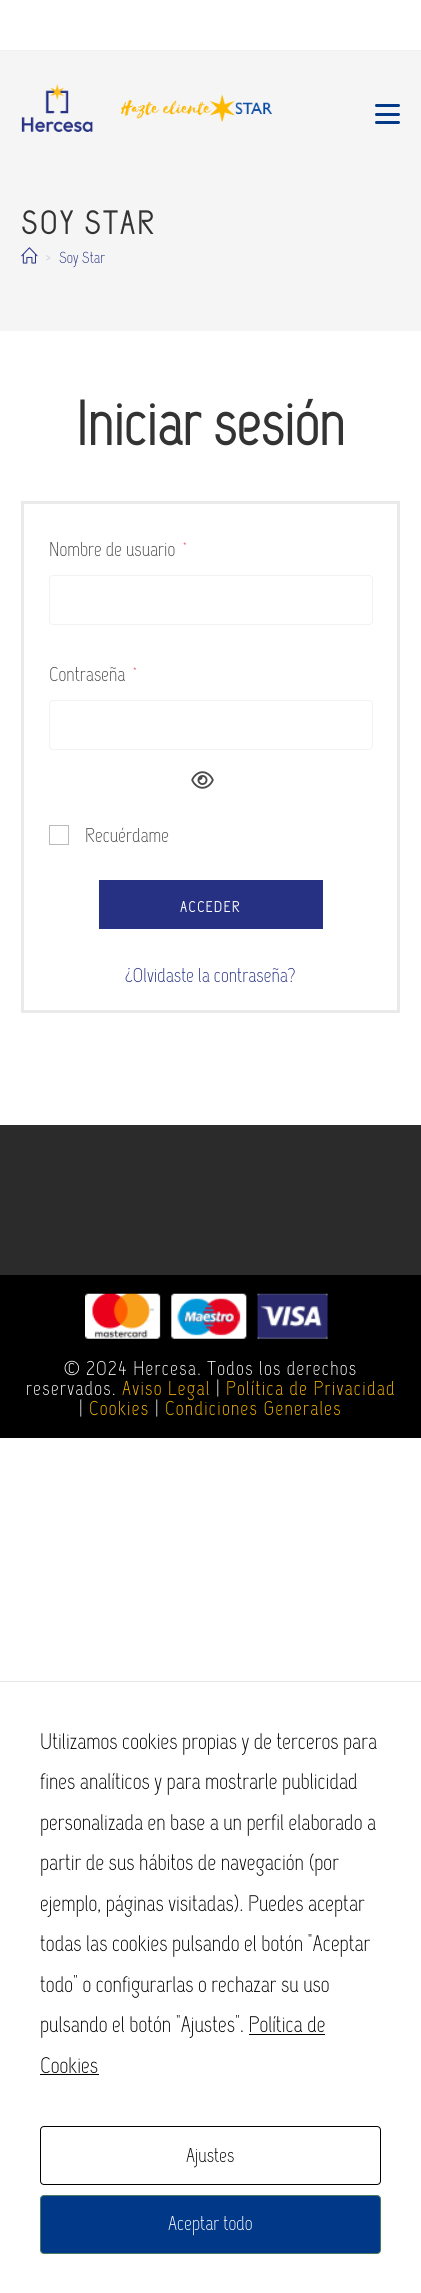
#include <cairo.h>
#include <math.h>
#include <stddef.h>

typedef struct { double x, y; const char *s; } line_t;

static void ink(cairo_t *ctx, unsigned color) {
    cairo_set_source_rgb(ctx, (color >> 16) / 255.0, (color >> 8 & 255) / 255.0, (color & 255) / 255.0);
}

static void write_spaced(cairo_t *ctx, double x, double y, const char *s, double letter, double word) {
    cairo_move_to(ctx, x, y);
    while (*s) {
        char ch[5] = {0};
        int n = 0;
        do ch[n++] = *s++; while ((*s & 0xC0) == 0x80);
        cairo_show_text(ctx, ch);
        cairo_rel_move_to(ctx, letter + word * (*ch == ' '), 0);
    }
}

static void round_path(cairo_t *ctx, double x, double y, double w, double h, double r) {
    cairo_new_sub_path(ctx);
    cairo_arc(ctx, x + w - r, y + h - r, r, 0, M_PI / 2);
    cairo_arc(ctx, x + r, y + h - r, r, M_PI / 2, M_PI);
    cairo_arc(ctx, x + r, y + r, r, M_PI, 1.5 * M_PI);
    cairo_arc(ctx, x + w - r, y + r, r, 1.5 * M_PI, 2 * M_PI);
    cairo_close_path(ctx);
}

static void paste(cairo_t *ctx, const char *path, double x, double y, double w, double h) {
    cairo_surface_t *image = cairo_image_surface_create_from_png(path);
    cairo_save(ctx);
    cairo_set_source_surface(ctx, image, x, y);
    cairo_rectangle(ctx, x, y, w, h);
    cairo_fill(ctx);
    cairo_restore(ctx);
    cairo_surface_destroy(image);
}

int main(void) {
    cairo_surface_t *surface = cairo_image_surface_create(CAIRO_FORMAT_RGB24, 421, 2293);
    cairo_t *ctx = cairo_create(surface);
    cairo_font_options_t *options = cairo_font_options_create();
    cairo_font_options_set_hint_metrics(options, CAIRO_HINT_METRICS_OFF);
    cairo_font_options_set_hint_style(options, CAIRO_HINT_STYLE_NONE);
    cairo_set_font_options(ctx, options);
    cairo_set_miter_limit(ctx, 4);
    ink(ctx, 0xFFFFFF);
    cairo_paint(ctx);
    ink(ctx, 0xF1F1F1);
    cairo_rectangle(ctx, 0, 50, 421, 1);
    cairo_fill(ctx);
    ink(ctx, 0xF5F5F5);
    cairo_rectangle(ctx, 0, 51, 421, 280);
    cairo_fill(ctx);
    paste(ctx, "media/1.png", 21, 84, 252, 48);
    ink(ctx, 0x013888);
    round_path(ctx, 375, 113, 25, 3, 1.5);
    cairo_fill(ctx);
    round_path(ctx, 375, 104, 25, 3, 1.5);
    cairo_fill(ctx);
    round_path(ctx, 375, 121, 25, 3, 1.5);
    cairo_fill(ctx);
    cairo_select_font_face(ctx, "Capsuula", CAIRO_FONT_SLANT_NORMAL, CAIRO_FONT_WEIGHT_BOLD);
    cairo_set_font_size(ctx, 32.5);
    ink(ctx, 0x333333);
    write_spaced(ctx, 21, 234, "SOY STAR", 2.5, 0);
    paste(ctx, "media/2.png", 21, 247, 17, 17);
    cairo_select_font_face(ctx, "Capsuula", CAIRO_FONT_SLANT_NORMAL, CAIRO_FONT_WEIGHT_NORMAL);
    cairo_set_font_size(ctx, 16);
    ink(ctx, 0xC6C6C6);
    cairo_move_to(ctx, 45, 263);
    cairo_show_text(ctx, ">");
    ink(ctx, 0x263184);
    cairo_move_to(ctx, 59, 263);
    cairo_show_text(ctx, "Soy Star");
    cairo_select_font_face(ctx, "Capsuula", CAIRO_FONT_SLANT_NORMAL, CAIRO_FONT_WEIGHT_BOLD);
    cairo_set_font_size(ctx, 62.5);
    ink(ctx, 0x333333);
    cairo_move_to(ctx, 76, 445);
    cairo_show_text(ctx, "Iniciar sesión");
    cairo_rectangle(ctx, 22.5, 502.5, 376, 509);
    ink(ctx, 0xEAEAEA);
    cairo_set_line_width(ctx, 3);
    cairo_stroke(ctx);
    cairo_select_font_face(ctx, "Capsuula", CAIRO_FONT_SLANT_NORMAL, CAIRO_FONT_WEIGHT_NORMAL);
    cairo_set_font_size(ctx, 20);
    ink(ctx, 0x4A4A4A);
    cairo_move_to(ctx, 49, 556);
    cairo_show_text(ctx, "Nombre de usuario");
    cairo_set_font_size(ctx, 12);
    ink(ctx, 0xE42234);
    cairo_move_to(ctx, 183, 551);
    cairo_show_text(ctx, "*");
    round_path(ctx, 49.5, 575.5, 323, 49, 3.5);
    ink(ctx, 0xF2F2F2);
    cairo_set_line_width(ctx, 1);
    cairo_stroke(ctx);
    cairo_set_font_size(ctx, 20);
    ink(ctx, 0x4A4A4A);
    cairo_move_to(ctx, 49, 681);
    cairo_show_text(ctx, "Contraseña");
    cairo_set_font_size(ctx, 12);
    ink(ctx, 0xE42234);
    cairo_move_to(ctx, 133, 676);
    cairo_show_text(ctx, "*");
    round_path(ctx, 49.5, 700.5, 323, 49, 3.5);
    ink(ctx, 0xF2F2F2);
    cairo_stroke(ctx);
    paste(ctx, "media/3.png", 191, 771, 23, 18);
    cairo_rectangle(ctx, 49.5, 825.5, 19, 19);
    ink(ctx, 0xBBBBBB);
    cairo_stroke(ctx);
    cairo_set_font_size(ctx, 20);
    ink(ctx, 0x4A4A4A);
    cairo_move_to(ctx, 85, 842);
    cairo_show_text(ctx, "Recuérdame");
    ink(ctx, 0x263184);
    cairo_rectangle(ctx, 99, 880, 224, 49);
    cairo_fill(ctx);
    cairo_select_font_face(ctx, "Capsuula", CAIRO_FONT_SLANT_NORMAL, CAIRO_FONT_WEIGHT_BOLD);
    cairo_set_font_size(ctx, 15);
    ink(ctx, 0xFFFFFF);
    write_spaced(ctx, 180, 912, "ACCEDER", 1.5, 0);
    cairo_select_font_face(ctx, "Capsuula", CAIRO_FONT_SLANT_NORMAL, CAIRO_FONT_WEIGHT_NORMAL);
    cairo_set_font_size(ctx, 20);
    ink(ctx, 0x263184);
    cairo_move_to(ctx, 125, 982);
    cairo_show_text(ctx, "¿Olvidaste la contraseña?");
    ink(ctx, 0x2B2B2B);
    cairo_rectangle(ctx, 0, 1125, 421, 150);
    cairo_fill(ctx);
    ink(ctx, 0x000000);
    cairo_rectangle(ctx, 0, 1275, 421, 163);
    cairo_fill(ctx);
    paste(ctx, "media/4.png", 85, 1293, 243, 46);
    ink(ctx, 0xFFFFFF);
    write_spaced(ctx, 64, 1375, "© 2024 Hercesa. Todos los derechos", 1.25, 0);
    write_spaced(ctx, 26, 1395, "reservados.", 1.25, 0);
    ink(ctx, 0xFFB901);
    write_spaced(ctx, 122, 1395, "Aviso Legal", 1.25, 0);
    ink(ctx, 0xFFFFFF);
    write_spaced(ctx, 216, 1395, "|", 1.25, 0);
    ink(ctx, 0xFFB901);
    write_spaced(ctx, 226, 1395, "Política de Privacidad", 1.25, 0);
    ink(ctx, 0xFFFFFF);
    write_spaced(ctx, 79, 1415, "|", 1.25, 0);
    ink(ctx, 0xFFB901);
    write_spaced(ctx, 89, 1415, "Cookies", 1.25, 0);
    ink(ctx, 0xFFFFFF);
    write_spaced(ctx, 155, 1415, "|", 1.25, 0);
    ink(ctx, 0xFFB901);
    write_spaced(ctx, 165, 1415, "Condiciones Generales", 1.25, 0);
    ink(ctx, 0xE6E6E6);
    cairo_rectangle(ctx, 0, 1681, 421, 1);
    cairo_fill(ctx);
    cairo_set_font_size(ctx, 22.5);
    ink(ctx, 0x000000);
    {
        static const line_t items[] = {
            {40, 1749, "Utilizamos cookies propias y de terceros para"},
            {40, 1789, "fines analíticos y para mostrarle publicidad"},
            {40, 1830, "personalizada en base a un perfil elaborado a"},
            {40, 1870, "partir de sus hábitos de navegación (por"},
            {40, 1911, "ejemplo, páginas visitadas). Puedes aceptar"},
            {40, 1951, "todas las cookies pulsando el botón \"Aceptar"},
            {40, 1992, "todo\" o configurarlas o rechazar su uso"},
            {40, 2032, "pulsando el botón \"Ajustes\". Política de"},
            {40, 2073, "Cookies"},
        };
        for (size_t i = 0; i < sizeof items / sizeof *items; i++) {
            cairo_move_to(ctx, items[i].x, items[i].y);
            cairo_show_text(ctx, items[i].s);
        }
    }
    cairo_rectangle(ctx, 249, 2034, 76, 1);
    cairo_fill(ctx);
    cairo_rectangle(ctx, 40, 2074, 59, 1);
    cairo_fill(ctx);
    round_path(ctx, 40.5, 2126.5, 340, 58, 3.5);
    cairo_stroke(ctx);
    cairo_set_font_size(ctx, 20);
    cairo_move_to(ctx, 186, 2162);
    cairo_show_text(ctx, "Ajustes");
    ink(ctx, 0x013888);
    round_path(ctx, 40.5, 2195.5, 340, 58, 3.5);
    cairo_fill_preserve(ctx);
    ink(ctx, 0x4B7D5E);
    cairo_stroke(ctx);
    ink(ctx, 0xFFFFFF);
    cairo_move_to(ctx, 168, 2230);
    cairo_show_text(ctx, "Aceptar todo");
    cairo_surface_write_to_png(surface, "image.png");
    cairo_font_options_destroy(options);
    cairo_destroy(ctx);
    cairo_surface_destroy(surface);
    return 0;
}
